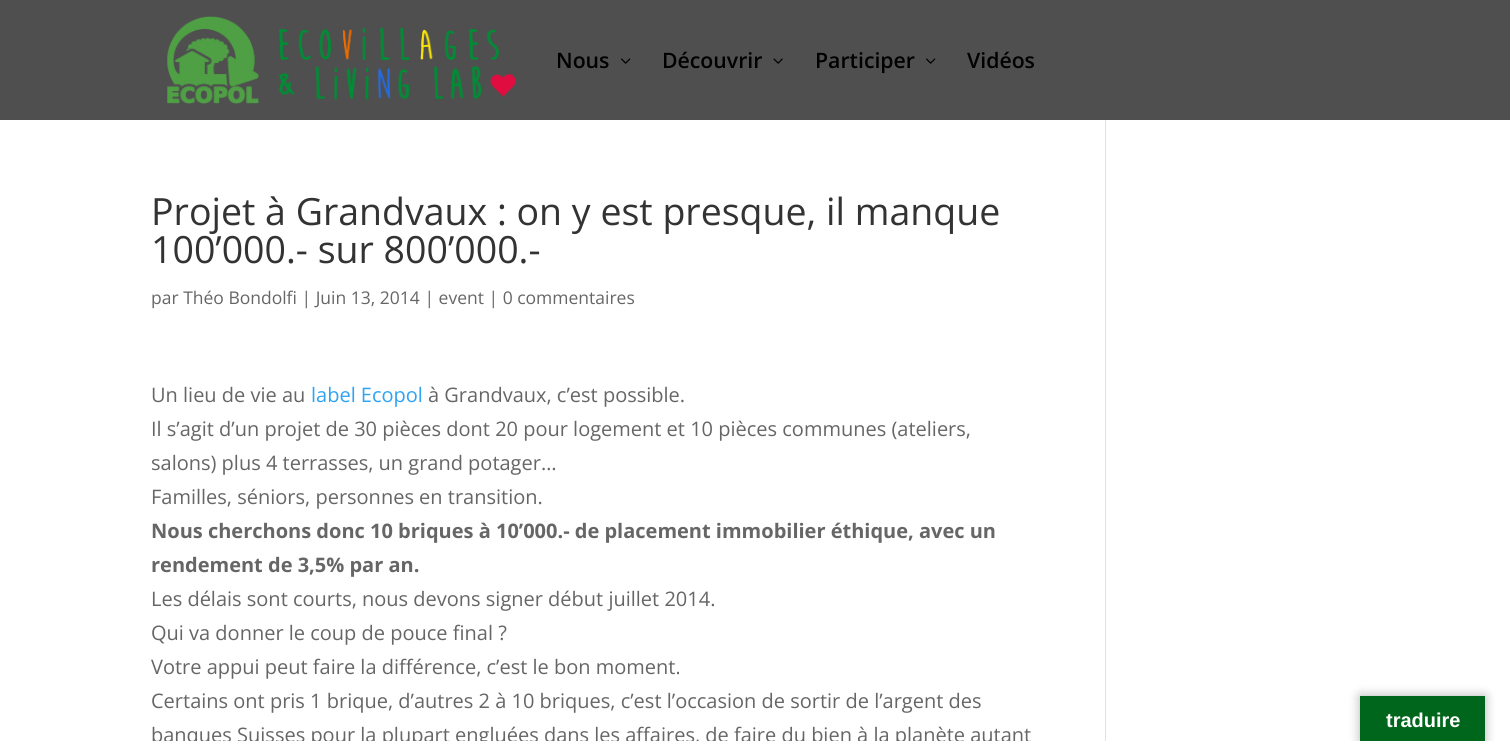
#include <cairo.h>
#include <math.h>
#include <stddef.h>

typedef struct { double x, y; const char *s; } line_t;

static void ink(cairo_t *ctx, unsigned color) {
    cairo_set_source_rgb(ctx, (color >> 16) / 255.0, (color >> 8 & 255) / 255.0, (color & 255) / 255.0);
}

static void round_path(cairo_t *ctx, double x, double y, double w, double h, double r) {
    cairo_new_sub_path(ctx);
    cairo_arc(ctx, x + w - r, y + h - r, r, 0, M_PI / 2);
    cairo_arc(ctx, x + r, y + h - r, r, M_PI / 2, M_PI);
    cairo_arc(ctx, x + r, y + r, r, M_PI, 1.5 * M_PI);
    cairo_arc(ctx, x + w - r, y + r, r, 1.5 * M_PI, 2 * M_PI);
    cairo_close_path(ctx);
}

static void blur_box(cairo_t *ctx, double x, double y, double w, double h, double r, double blur, double alpha) {
    cairo_push_group_with_content(ctx, CAIRO_CONTENT_ALPHA);
    cairo_set_operator(ctx, CAIRO_OPERATOR_SOURCE);
    for (int i = 15; i >= -15 && fmin(w, h) + blur * i / 3 > 0; i -= 2) {
        double e = blur * i / 6;
        cairo_set_source_rgba(ctx, 0, 0, 0, alpha * erfc((i - 1) / 8.5) / 2);
        round_path(ctx, x - e, y - e, w + 2 * e, h + 2 * e, fmax(0, fmin(r + e + blur * .6, fmin(w, h) / 2 + e)));
        cairo_fill(ctx);
    }
    cairo_pattern_t *soft = cairo_pop_group(ctx);
    cairo_mask(ctx, soft);
    cairo_pattern_destroy(soft);
}

static void paste(cairo_t *ctx, const char *path, double x, double y, double w, double h) {
    cairo_surface_t *image = cairo_image_surface_create_from_png(path);
    cairo_save(ctx);
    cairo_set_source_surface(ctx, image, x, y);
    cairo_rectangle(ctx, x, y, w, h);
    cairo_fill(ctx);
    cairo_restore(ctx);
    cairo_surface_destroy(image);
}

int main(void) {
    cairo_surface_t *surface = cairo_image_surface_create(CAIRO_FORMAT_RGB24, 1510, 741);
    cairo_t *ctx = cairo_create(surface);
    cairo_font_options_t *options = cairo_font_options_create();
    cairo_font_options_set_hint_metrics(options, CAIRO_HINT_METRICS_OFF);
    cairo_font_options_set_hint_style(options, CAIRO_HINT_STYLE_NONE);
    cairo_set_font_options(ctx, options);
    cairo_set_miter_limit(ctx, 4);
    ink(ctx, 0xFFFFFF);
    cairo_paint(ctx);
    ink(ctx, 0x4F4F4F);
    cairo_rectangle(ctx, 0, 0, 1510, 120);
    cairo_fill(ctx);
    paste(ctx, "media/1.png", 167, 16, 349, 88);
    cairo_select_font_face(ctx, "Open Sans SemiBold", CAIRO_FONT_SLANT_NORMAL, CAIRO_FONT_WEIGHT_NORMAL);
    cairo_set_font_size(ctx, 21.25);
    ink(ctx, 0x000000);
    cairo_move_to(ctx, 556, 68);
    cairo_show_text(ctx, "Nous");
    paste(ctx, "media/2.png", 621, 58, 10, 6);
    cairo_move_to(ctx, 662, 68);
    cairo_show_text(ctx, "Découvrir");
    paste(ctx, "media/3.png", 773, 58, 10, 6);
    cairo_move_to(ctx, 815, 68);
    cairo_show_text(ctx, "Participer");
    paste(ctx, "media/2.png", 926, 58, 10, 6);
    cairo_move_to(ctx, 967, 68);
    cairo_show_text(ctx, "Vidéos");
    cairo_select_font_face(ctx, "Open Sans", CAIRO_FONT_SLANT_NORMAL, CAIRO_FONT_WEIGHT_NORMAL);
    cairo_set_font_size(ctx, 37.5);
    ink(ctx, 0x333333);
    cairo_move_to(ctx, 151, 225);
    cairo_show_text(ctx, "Projet à Grandvaux : on y est presque, il manque");
    cairo_move_to(ctx, 151, 263);
    cairo_show_text(ctx, "100’000.- sur 800’000.-");
    cairo_set_font_size(ctx, 17.5);
    ink(ctx, 0x666666);
    cairo_move_to(ctx, 151, 304);
    cairo_show_text(ctx, "par Théo Bondolfi | Juin 13, 2014 | event | 0 commentaires");
    cairo_set_font_size(ctx, 20);
    cairo_move_to(ctx, 151, 402);
    cairo_show_text(ctx, "Un lieu de vie au");
    ink(ctx, 0x2EA3F2);
    cairo_move_to(ctx, 311, 402);
    cairo_show_text(ctx, "label Ecopol");
    ink(ctx, 0x666666);
    {
        static const line_t items[] = {
            {428, 402, "à Grandvaux, c’est possible."},
            {151, 436, "Il s’agit d’un projet de 30 pièces dont 20 pour logement et 10 pièces communes (ateliers,"},
            {151, 470, "salons) plus 4 terrasses, un grand potager…"},
            {151, 504, "Familles, séniors, personnes en transition."},
        };
        for (size_t i = 0; i < sizeof items / sizeof *items; i++) {
            cairo_move_to(ctx, items[i].x, items[i].y);
            cairo_show_text(ctx, items[i].s);
        }
    }
    cairo_select_font_face(ctx, "Open Sans", CAIRO_FONT_SLANT_NORMAL, CAIRO_FONT_WEIGHT_BOLD);
    cairo_move_to(ctx, 151, 538);
    cairo_show_text(ctx, "Nous cherchons donc 10 briques à 10’000.- de placement immobilier éthique, avec un");
    cairo_move_to(ctx, 151, 572);
    cairo_show_text(ctx, "rendement de 3,5% par an.");
    cairo_select_font_face(ctx, "Open Sans", CAIRO_FONT_SLANT_NORMAL, CAIRO_FONT_WEIGHT_NORMAL);
    {
        static const line_t items[] = {
            {151, 606, "Les délais sont courts, nous devons signer début juillet 2014."},
            {151, 640, "Qui va donner le coup de pouce final ?"},
            {151, 674, "Votre appui peut faire la différence, c’est le bon moment."},
            {151, 708, "Certains ont pris 1 brique, d’autres 2 à 10 briques, c’est l’occasion de sortir de l’argent des"},
            {151, 742, "banques Suisses pour la plupart engluées dans les affaires, de faire du bien à la planète autant"},
        };
        for (size_t i = 0; i < sizeof items / sizeof *items; i++) {
            cairo_move_to(ctx, items[i].x, items[i].y);
            cairo_show_text(ctx, items[i].s);
        }
    }
    ink(ctx, 0xE2E2E2);
    cairo_rectangle(ctx, 1105, 120, 1, 621);
    cairo_fill(ctx);
    ink(ctx, 0x000000);
    blur_box(ctx, 1360, 696, 125, 45, 0, 5.5, 0.3);
    ink(ctx, 0x00661B);
    cairo_rectangle(ctx, 1360, 696, 125, 45);
    cairo_fill(ctx);
    cairo_select_font_face(ctx, "Liberation Sans", CAIRO_FONT_SLANT_NORMAL, CAIRO_FONT_WEIGHT_BOLD);
    ink(ctx, 0xFFFFFF);
    cairo_move_to(ctx, 1386, 727);
    cairo_show_text(ctx, "traduire");
    cairo_surface_write_to_png(surface, "image.png");
    cairo_font_options_destroy(options);
    cairo_destroy(ctx);
    cairo_surface_destroy(surface);
    return 0;
}
